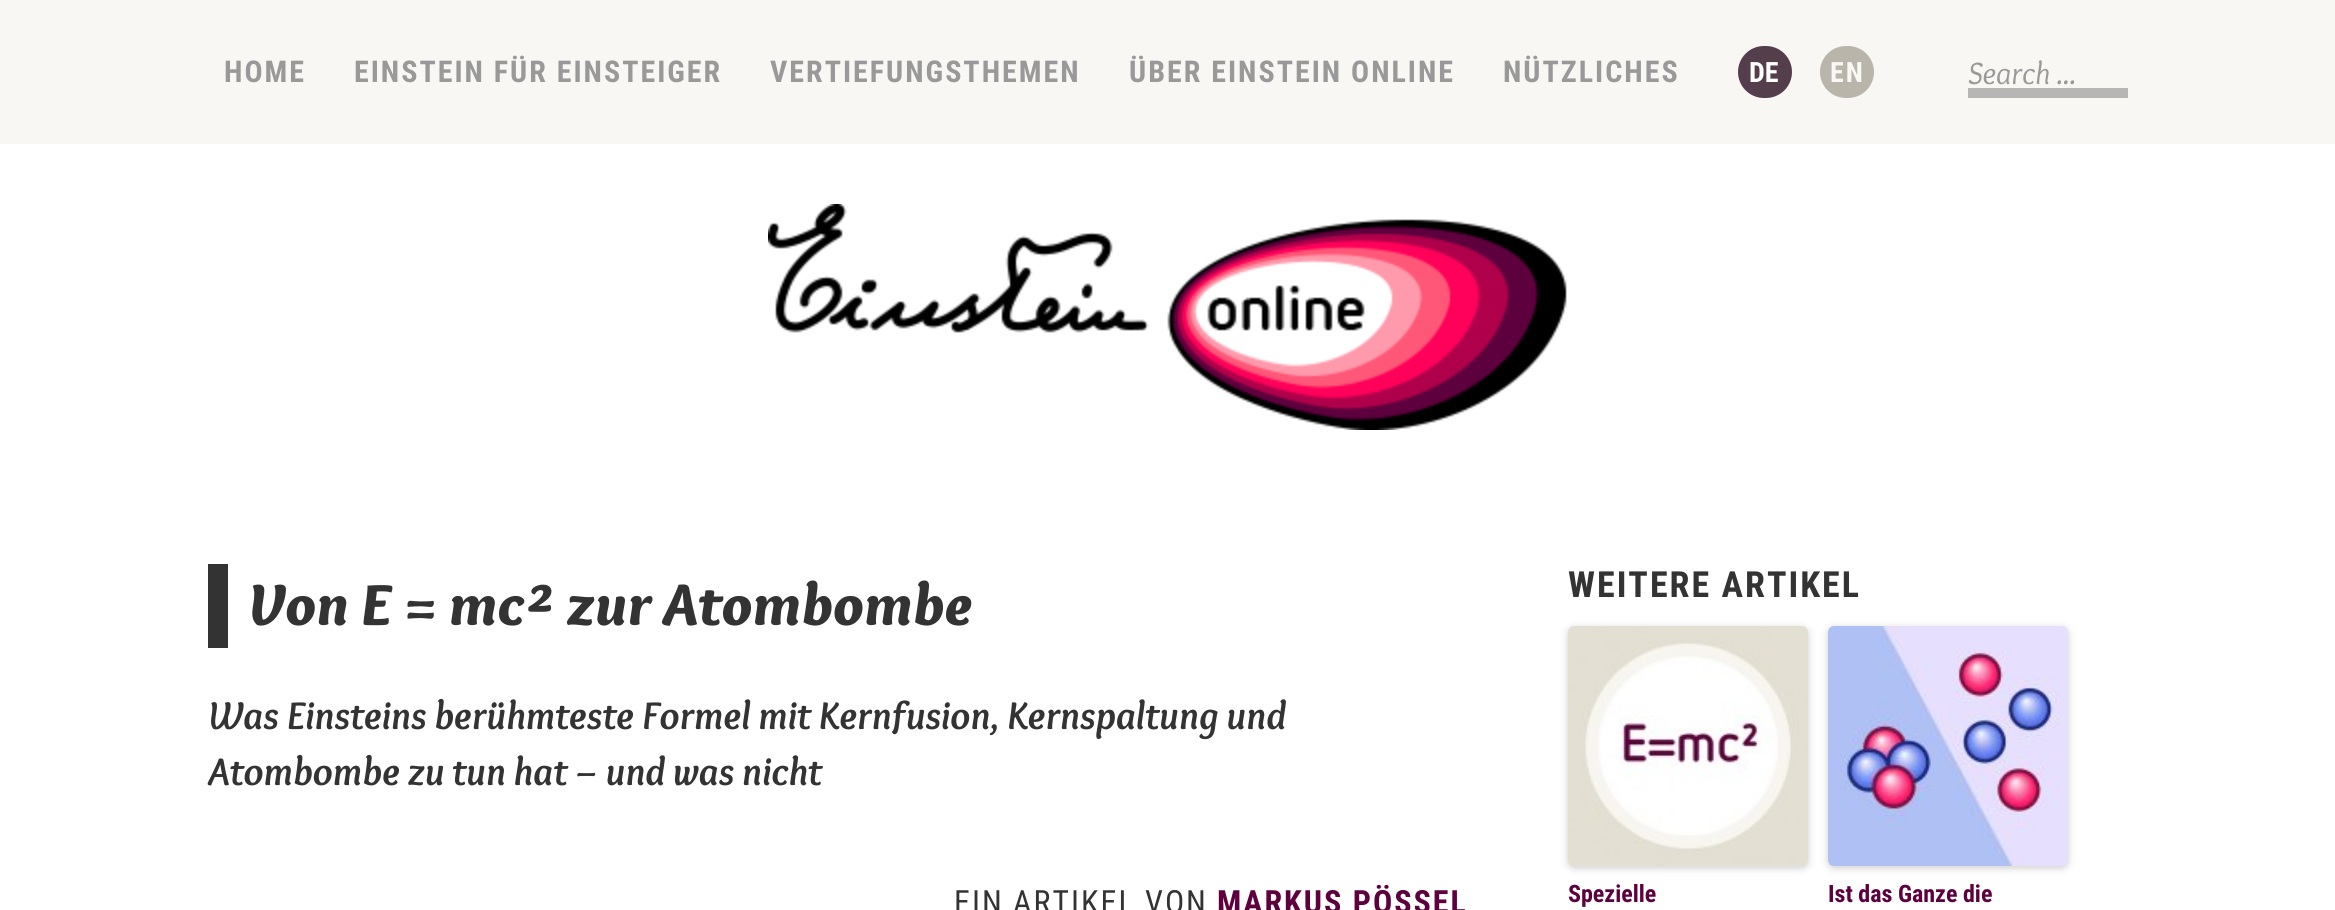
#include <cairo.h>
#include <math.h>
#include <stddef.h>

typedef struct { double x, y; const char *s; } line_t;

static void ink(cairo_t *ctx, unsigned color) {
    cairo_set_source_rgb(ctx, (color >> 16) / 255.0, (color >> 8 & 255) / 255.0, (color & 255) / 255.0);
}

static void write_spaced(cairo_t *ctx, double x, double y, const char *s, double letter, double word) {
    cairo_move_to(ctx, x, y);
    while (*s) {
        char ch[5] = {0};
        int n = 0;
        do ch[n++] = *s++; while ((*s & 0xC0) == 0x80);
        cairo_show_text(ctx, ch);
        cairo_rel_move_to(ctx, letter + word * (*ch == ' '), 0);
    }
}

static void round_path(cairo_t *ctx, double x, double y, double w, double h, double r) {
    cairo_new_sub_path(ctx);
    cairo_arc(ctx, x + w - r, y + h - r, r, 0, M_PI / 2);
    cairo_arc(ctx, x + r, y + h - r, r, M_PI / 2, M_PI);
    cairo_arc(ctx, x + r, y + r, r, M_PI, 1.5 * M_PI);
    cairo_arc(ctx, x + w - r, y + r, r, 1.5 * M_PI, 2 * M_PI);
    cairo_close_path(ctx);
}

static void blur_box(cairo_t *ctx, double x, double y, double w, double h, double r, double blur, double alpha) {
    cairo_push_group_with_content(ctx, CAIRO_CONTENT_ALPHA);
    cairo_set_operator(ctx, CAIRO_OPERATOR_SOURCE);
    for (int i = 15; i >= -15 && fmin(w, h) + blur * i / 3 > 0; i -= 2) {
        double e = blur * i / 6;
        cairo_set_source_rgba(ctx, 0, 0, 0, alpha * erfc((i - 1) / 8.5) / 2);
        round_path(ctx, x - e, y - e, w + 2 * e, h + 2 * e, fmax(0, fmin(r + e + blur * .6, fmin(w, h) / 2 + e)));
        cairo_fill(ctx);
    }
    cairo_pattern_t *soft = cairo_pop_group(ctx);
    cairo_mask(ctx, soft);
    cairo_pattern_destroy(soft);
}

static void paste(cairo_t *ctx, const char *path, double x, double y, double w, double h) {
    cairo_surface_t *image = cairo_image_surface_create_from_png(path);
    cairo_save(ctx);
    cairo_set_source_surface(ctx, image, x, y);
    cairo_rectangle(ctx, x, y, w, h);
    cairo_fill(ctx);
    cairo_restore(ctx);
    cairo_surface_destroy(image);
}

int main(void) {
    cairo_surface_t *surface = cairo_image_surface_create(CAIRO_FORMAT_RGB24, 2335, 910);
    cairo_t *ctx = cairo_create(surface);
    cairo_font_options_t *options = cairo_font_options_create();
    cairo_font_options_set_hint_metrics(options, CAIRO_HINT_METRICS_OFF);
    cairo_font_options_set_hint_style(options, CAIRO_HINT_STYLE_NONE);
    cairo_set_font_options(ctx, options);
    cairo_set_miter_limit(ctx, 4);
    ink(ctx, 0xFFFFFF);
    cairo_paint(ctx);
    ink(ctx, 0xF9F7F4);
    cairo_rectangle(ctx, 0, 0, 2335, 144);
    cairo_fill(ctx);
    cairo_select_font_face(ctx, "Roboto Condensed", CAIRO_FONT_SLANT_NORMAL, CAIRO_FONT_WEIGHT_BOLD);
    cairo_set_font_size(ctx, 30);
    ink(ctx, 0x999999);
    {
        static const line_t items[] = {
            {224, 82, "HOME"},
            {354, 82, "EINSTEIN FÜR EINSTEIGER"},
            {770, 82, "VERTIEFUNGSTHEMEN"},
            {1129, 82, "ÜBER EINSTEIN ONLINE"},
            {1503, 82, "NÜTZLICHES"},
        };
        for (size_t i = 0; i < sizeof items / sizeof *items; i++) {
            write_spaced(ctx, items[i].x, items[i].y, items[i].s, 2, 0);
        }
    }
    ink(ctx, 0x543E4C);
    round_path(ctx, 1738, 46, 54, 52, 26);
    cairo_fill(ctx);
    cairo_set_font_size(ctx, 28);
    ink(ctx, 0xFFFFFF);
    cairo_move_to(ctx, 1749, 82);
    cairo_show_text(ctx, "DE");
    ink(ctx, 0xB9B5AA);
    round_path(ctx, 1820, 46, 54, 52, 26);
    cairo_fill(ctx);
    ink(ctx, 0xF9F8F4);
    write_spaced(ctx, 1830, 82, "EN", 2, 0);
    cairo_select_font_face(ctx, "Overlock", CAIRO_FONT_SLANT_ITALIC, CAIRO_FONT_WEIGHT_NORMAL);
    cairo_set_font_size(ctx, 32);
    ink(ctx, 0x999999);
    cairo_move_to(ctx, 1968, 84);
    cairo_show_text(ctx, "Search ...");
    ink(ctx, 0xB7B6B5);
    cairo_rectangle(ctx, 1968, 88, 160, 10);
    cairo_fill(ctx);
    paste(ctx, "media/1.png", 768, 204, 799, 226);
    ink(ctx, 0x333333);
    cairo_rectangle(ctx, 208, 564, 20, 84);
    cairo_fill(ctx);
    cairo_select_font_face(ctx, "Overlock Black", CAIRO_FONT_SLANT_ITALIC, CAIRO_FONT_WEIGHT_NORMAL);
    cairo_set_font_size(ctx, 60);
    cairo_move_to(ctx, 248, 625);
    cairo_show_text(ctx, "Von E = mc² zur Atombombe");
    cairo_select_font_face(ctx, "Overlock", CAIRO_FONT_SLANT_ITALIC, CAIRO_FONT_WEIGHT_BOLD);
    cairo_set_font_size(ctx, 40);
    cairo_move_to(ctx, 208, 729);
    cairo_show_text(ctx, "Was Einsteins berühmteste Formel mit Kernfusion, Kernspaltung und");
    cairo_move_to(ctx, 208, 785);
    cairo_show_text(ctx, "Atombombe zu tun hat – und was nicht");
    cairo_select_font_face(ctx, "Roboto Condensed", CAIRO_FONT_SLANT_NORMAL, CAIRO_FONT_WEIGHT_NORMAL);
    cairo_set_font_size(ctx, 32);
    write_spaced(ctx, 954, 913, "EIN ARTIKEL VON", 2, 0);
    cairo_select_font_face(ctx, "Roboto Condensed", CAIRO_FONT_SLANT_NORMAL, CAIRO_FONT_WEIGHT_BOLD);
    ink(ctx, 0x5D003D);
    write_spaced(ctx, 1217, 913, "MARKUS PÖSSEL", 2, 0);
    cairo_set_font_size(ctx, 36);
    ink(ctx, 0x333333);
    write_spaced(ctx, 1568, 597, "WEITERE ARTIKEL", 2, 0);
    ink(ctx, 0x000000);
    blur_box(ctx, 1568, 628, 240, 240, 6, 4, 0.2);
    paste(ctx, "media/2.png", 1568, 626, 240, 240);
    cairo_set_font_size(ctx, 24);
    ink(ctx, 0x5D003D);
    cairo_move_to(ctx, 1568, 902);
    cairo_show_text(ctx, "Spezielle");
    ink(ctx, 0x000000);
    blur_box(ctx, 1828, 628, 240, 240, 6, 4, 0.2);
    paste(ctx, "media/3.png", 1828, 626, 240, 240);
    ink(ctx, 0x5D003D);
    cairo_move_to(ctx, 1828, 902);
    cairo_show_text(ctx, "Ist das Ganze die");
    cairo_surface_write_to_png(surface, "image.png");
    cairo_font_options_destroy(options);
    cairo_destroy(ctx);
    cairo_surface_destroy(surface);
    return 0;
}
